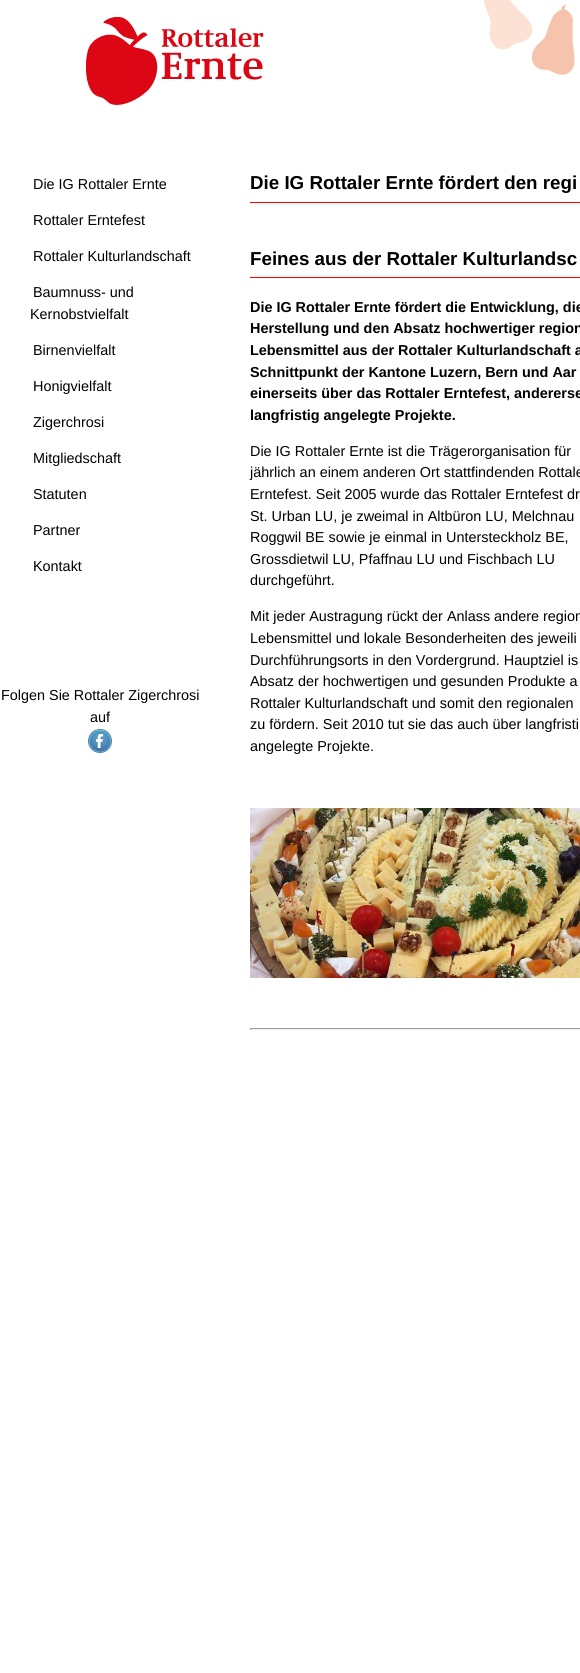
#include <cairo.h>
#include <math.h>
#include <stddef.h>

typedef struct { double x, y; const char *s; } line_t;
typedef struct { double x, y, w, h; unsigned color; } box_t;

static void ink(cairo_t *ctx, unsigned color) {
    cairo_set_source_rgb(ctx, (color >> 16) / 255.0, (color >> 8 & 255) / 255.0, (color & 255) / 255.0);
}

static void paste(cairo_t *ctx, const char *path, double x, double y, double w, double h) {
    cairo_surface_t *image = cairo_image_surface_create_from_png(path);
    cairo_save(ctx);
    cairo_set_source_surface(ctx, image, x, y);
    cairo_rectangle(ctx, x, y, w, h);
    cairo_fill(ctx);
    cairo_restore(ctx);
    cairo_surface_destroy(image);
}

int main(void) {
    cairo_surface_t *surface = cairo_image_surface_create(CAIRO_FORMAT_RGB24, 580, 1673);
    cairo_t *ctx = cairo_create(surface);
    cairo_font_options_t *options = cairo_font_options_create();
    cairo_font_options_set_hint_metrics(options, CAIRO_HINT_METRICS_OFF);
    cairo_font_options_set_hint_style(options, CAIRO_HINT_STYLE_NONE);
    cairo_set_font_options(ctx, options);
    cairo_set_miter_limit(ctx, 4);
    ink(ctx, 0xFFFFFF);
    cairo_paint(ctx);
    paste(ctx, "media/1.png", 483, 0, 92, 75);
    paste(ctx, "media/2.png", 86, 17, 178, 88);
    cairo_select_font_face(ctx, "Liberation Sans", CAIRO_FONT_SLANT_NORMAL, CAIRO_FONT_WEIGHT_NORMAL);
    cairo_set_font_size(ctx, 14.4);
    ink(ctx, 0x000000);
    {
        static const line_t items[] = {
            {33, 189, "Die IG Rottaler Ernte"},
            {33, 225, "Rottaler Erntefest"},
            {33, 261, "Rottaler Kulturlandschaft"},
            {33, 297, "Baumnuss- und"},
            {30, 319, "Kernobstvielfalt"},
            {33, 355, "Birnenvielfalt"},
            {33, 391, "Honigvielfalt"},
            {33, 427, "Zigerchrosi"},
            {33, 463, "Mitgliedschaft"},
            {33, 499, "Statuten"},
            {33, 535, "Partner"},
            {33, 571, "Kontakt"},
            {1, 700, "Folgen Sie Rottaler Zigerchrosi"},
            {90, 722, "auf"},
        };
        for (size_t i = 0; i < sizeof items / sizeof *items; i++) {
            cairo_move_to(ctx, items[i].x, items[i].y);
            cairo_show_text(ctx, items[i].s);
        }
    }
    paste(ctx, "media/3.png", 88, 729, 24, 24);
    ink(ctx, 0xFF0000);
    cairo_rectangle(ctx, 250, 202, 330, 1);
    cairo_fill(ctx);
    cairo_select_font_face(ctx, "Liberation Sans", CAIRO_FONT_SLANT_NORMAL, CAIRO_FONT_WEIGHT_BOLD);
    cairo_set_font_size(ctx, 18.75);
    ink(ctx, 0x000000);
    cairo_move_to(ctx, 250, 189);
    cairo_show_text(ctx, "Die IG Rottaler Ernte fördert den regi");
    ink(ctx, 0xFF0000);
    cairo_rectangle(ctx, 250, 277, 330, 1);
    cairo_fill(ctx);
    ink(ctx, 0x000000);
    cairo_move_to(ctx, 250, 265);
    cairo_show_text(ctx, "Feines aus der Rottaler Kulturlandsc");
    cairo_set_font_size(ctx, 14.4);
    {
        static const line_t items[] = {
            {250, 312, "Die IG Rottaler Ernte fördert die Entwicklung, die"},
            {250, 333, "Herstellung und den Absatz hochwertiger region"},
            {250, 355, "Lebensmittel aus der Rottaler Kulturlandschaft a"},
            {250, 377, "Schnittpunkt der Kantone Luzern, Bern und Aar"},
            {250, 398, "einerseits über das Rottaler Erntefest, andererse"},
            {250, 420, "langfristig angelegte Projekte."},
        };
        for (size_t i = 0; i < sizeof items / sizeof *items; i++) {
            cairo_move_to(ctx, items[i].x, items[i].y);
            cairo_show_text(ctx, items[i].s);
        }
    }
    cairo_select_font_face(ctx, "Liberation Sans", CAIRO_FONT_SLANT_NORMAL, CAIRO_FONT_WEIGHT_NORMAL);
    {
        static const line_t items[] = {
            {250, 456, "Die IG Rottaler Ernte ist die Trägerorganisation für"},
            {250, 477, "jährlich an einem anderen Ort stattfindenden Rottale"},
            {250, 499, "Erntefest. Seit 2005 wurde das Rottaler Erntefest dr"},
            {250, 521, "St. Urban LU, je zweimal in Altbüron LU, Melchnau"},
            {250, 542, "Roggwil BE sowie je einmal in Untersteckholz BE,"},
            {250, 564, "Grossdietwil LU, Pfaffnau LU und Fischbach LU"},
            {250, 585, "durchgeführt."},
            {250, 621, "Mit jeder Austragung rückt der Anlass andere region"},
            {250, 643, "Lebensmittel und lokale Besonderheiten des jeweili"},
            {250, 665, "Durchführungsorts in den Vordergrund. Hauptziel is"},
            {250, 686, "Absatz der hochwertigen und gesunden Produkte a"},
            {250, 708, "Rottaler Kulturlandschaft und somit den regionalen"},
            {250, 729, "zu fördern. Seit 2010 tut sie das auch über langfristi"},
            {250, 751, "angelegte Projekte."},
        };
        for (size_t i = 0; i < sizeof items / sizeof *items; i++) {
            cairo_move_to(ctx, items[i].x, items[i].y);
            cairo_show_text(ctx, items[i].s);
        }
    }
    paste(ctx, "media/4.png", 250, 808, 330, 170);
    {
        static const box_t items[] = {
            {250, 1028, 330, 1, 0x9F9F9F},
            {250, 1029, 330, 1, 0xEEEEEE},
            {250, 1028, 1, 2, 0x9F9F9F},
        };
        for (size_t i = 0; i < sizeof items / sizeof *items; i++) {
            ink(ctx, items[i].color);
            cairo_rectangle(ctx, items[i].x, items[i].y, items[i].w, items[i].h);
            cairo_fill(ctx);
        }
    }
    cairo_surface_write_to_png(surface, "image.png");
    cairo_font_options_destroy(options);
    cairo_destroy(ctx);
    cairo_surface_destroy(surface);
    return 0;
}
